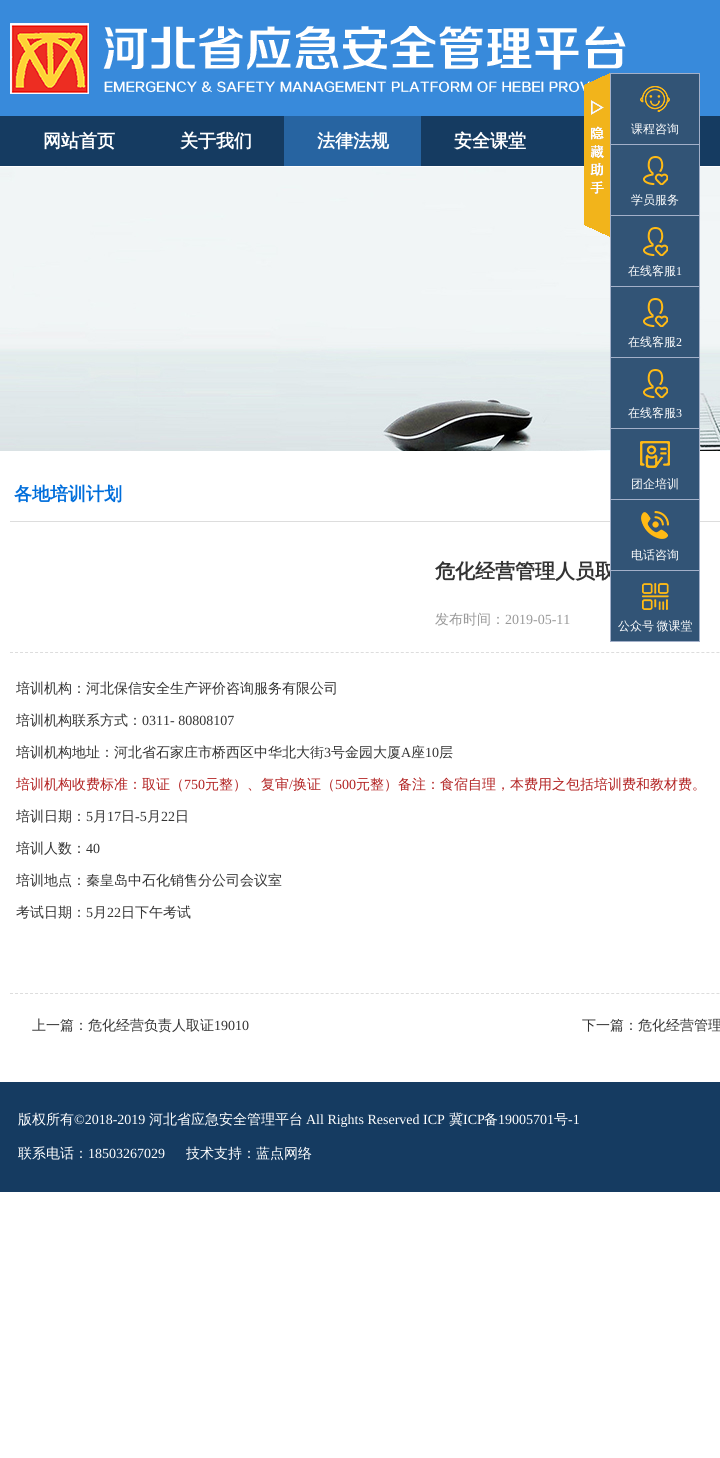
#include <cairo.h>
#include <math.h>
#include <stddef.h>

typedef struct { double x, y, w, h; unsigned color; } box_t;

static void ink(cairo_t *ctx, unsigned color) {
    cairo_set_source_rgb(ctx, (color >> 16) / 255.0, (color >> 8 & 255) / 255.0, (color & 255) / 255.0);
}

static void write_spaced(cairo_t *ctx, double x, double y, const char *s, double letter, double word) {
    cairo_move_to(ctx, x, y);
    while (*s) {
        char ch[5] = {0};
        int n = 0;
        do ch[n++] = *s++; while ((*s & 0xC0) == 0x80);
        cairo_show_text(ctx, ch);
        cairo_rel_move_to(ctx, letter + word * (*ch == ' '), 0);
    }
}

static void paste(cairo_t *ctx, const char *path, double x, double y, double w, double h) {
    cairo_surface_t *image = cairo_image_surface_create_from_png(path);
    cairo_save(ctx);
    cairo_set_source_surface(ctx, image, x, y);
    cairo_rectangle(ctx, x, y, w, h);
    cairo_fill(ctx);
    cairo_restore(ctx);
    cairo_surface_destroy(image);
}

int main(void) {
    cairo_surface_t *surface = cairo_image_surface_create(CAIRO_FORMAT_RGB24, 720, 1458);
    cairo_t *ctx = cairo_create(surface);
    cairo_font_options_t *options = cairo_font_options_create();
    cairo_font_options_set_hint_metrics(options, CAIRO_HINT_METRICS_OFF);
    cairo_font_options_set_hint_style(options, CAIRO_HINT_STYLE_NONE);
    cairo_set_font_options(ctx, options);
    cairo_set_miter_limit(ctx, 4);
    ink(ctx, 0xFFFFFF);
    cairo_paint(ctx);
    ink(ctx, 0x388ADB);
    cairo_rectangle(ctx, 0, 0, 720, 116);
    cairo_fill(ctx);
    paste(ctx, "media/1.png", 10, 23, 616, 71);
    ink(ctx, 0x153B61);
    cairo_rectangle(ctx, 0, 116, 720, 50);
    cairo_fill(ctx);
    cairo_select_font_face(ctx, "WenQuanYi Zen Hei", CAIRO_FONT_SLANT_NORMAL, CAIRO_FONT_WEIGHT_BOLD);
    cairo_set_font_size(ctx, 18);
    ink(ctx, 0xFFFFFF);
    cairo_move_to(ctx, 43, 147);
    cairo_show_text(ctx, "网站首页");
    cairo_move_to(ctx, 180, 147);
    cairo_show_text(ctx, "关于我们");
    ink(ctx, 0x2764A1);
    cairo_rectangle(ctx, 284, 116, 137, 50);
    cairo_fill(ctx);
    ink(ctx, 0xFFFFFF);
    cairo_move_to(ctx, 317, 147);
    cairo_show_text(ctx, "法律法规");
    cairo_move_to(ctx, 454, 147);
    cairo_show_text(ctx, "安全课堂");
    paste(ctx, "media/8.png", 0, 167, 720, 284);
    paste(ctx, "media/2.png", 584, 73, 26, 164);
    ink(ctx, 0x325476);
    cairo_rectangle(ctx, 610.5, 73.5, 89, 71);
    cairo_fill_preserve(ctx);
    ink(ctx, 0xA3B0C9);
    cairo_set_line_width(ctx, 1);
    cairo_stroke(ctx);
    paste(ctx, "media/3.png", 640, 86, 30, 26);
    cairo_select_font_face(ctx, "WenQuanYi Zen Hei Medium", CAIRO_FONT_SLANT_NORMAL, CAIRO_FONT_WEIGHT_NORMAL);
    cairo_set_font_size(ctx, 12);
    ink(ctx, 0xFFFFFF);
    cairo_move_to(ctx, 631, 133);
    cairo_show_text(ctx, "课程咨询");
    {
        static const box_t items[] = {
            {611, 145, 88, 70, 0x325476},
            {10, 521, 710, 1, 0xDDDDDD},
            {699, 145, 1, 497, 0xA3B0C9},
            {610, 215, 90, 1, 0xA3B0C9},
            {610, 145, 1, 71, 0xA3B0C9},
        };
        for (size_t i = 0; i < sizeof items / sizeof *items; i++) {
            ink(ctx, items[i].color);
            cairo_rectangle(ctx, items[i].x, items[i].y, items[i].w, items[i].h);
            cairo_fill(ctx);
        }
    }
    paste(ctx, "media/4.png", 643, 156, 25, 29);
    ink(ctx, 0xFFFFFF);
    cairo_move_to(ctx, 631, 204);
    cairo_show_text(ctx, "学员服务");
    {
        static const box_t items[] = {
            {611, 216, 88, 70, 0x325476},
            {610, 286, 90, 1, 0xA3B0C9},
            {610, 216, 1, 71, 0xA3B0C9},
        };
        for (size_t i = 0; i < sizeof items / sizeof *items; i++) {
            ink(ctx, items[i].color);
            cairo_rectangle(ctx, items[i].x, items[i].y, items[i].w, items[i].h);
            cairo_fill(ctx);
        }
    }
    paste(ctx, "media/4.png", 643, 227, 25, 29);
    ink(ctx, 0xFFFFFF);
    cairo_move_to(ctx, 628, 275);
    cairo_show_text(ctx, "在线客服");
    cairo_select_font_face(ctx, "Liberation Serif", CAIRO_FONT_SLANT_NORMAL, CAIRO_FONT_WEIGHT_NORMAL);
    cairo_move_to(ctx, 676, 275);
    cairo_show_text(ctx, "1");
    {
        static const box_t items[] = {
            {611, 287, 88, 70, 0x325476},
            {610, 357, 90, 1, 0xA3B0C9},
            {610, 287, 1, 71, 0xA3B0C9},
        };
        for (size_t i = 0; i < sizeof items / sizeof *items; i++) {
            ink(ctx, items[i].color);
            cairo_rectangle(ctx, items[i].x, items[i].y, items[i].w, items[i].h);
            cairo_fill(ctx);
        }
    }
    paste(ctx, "media/4.png", 643, 298, 25, 29);
    cairo_select_font_face(ctx, "WenQuanYi Zen Hei Medium", CAIRO_FONT_SLANT_NORMAL, CAIRO_FONT_WEIGHT_NORMAL);
    ink(ctx, 0xFFFFFF);
    cairo_move_to(ctx, 628, 346);
    cairo_show_text(ctx, "在线客服");
    cairo_select_font_face(ctx, "Liberation Serif", CAIRO_FONT_SLANT_NORMAL, CAIRO_FONT_WEIGHT_NORMAL);
    cairo_move_to(ctx, 676, 346);
    cairo_show_text(ctx, "2");
    {
        static const box_t items[] = {
            {611, 358, 88, 70, 0x325476},
            {610, 428, 90, 1, 0xA3B0C9},
            {610, 358, 1, 71, 0xA3B0C9},
        };
        for (size_t i = 0; i < sizeof items / sizeof *items; i++) {
            ink(ctx, items[i].color);
            cairo_rectangle(ctx, items[i].x, items[i].y, items[i].w, items[i].h);
            cairo_fill(ctx);
        }
    }
    paste(ctx, "media/4.png", 643, 369, 25, 29);
    cairo_select_font_face(ctx, "WenQuanYi Zen Hei Medium", CAIRO_FONT_SLANT_NORMAL, CAIRO_FONT_WEIGHT_NORMAL);
    ink(ctx, 0xFFFFFF);
    cairo_move_to(ctx, 628, 417);
    cairo_show_text(ctx, "在线客服");
    cairo_select_font_face(ctx, "Liberation Serif", CAIRO_FONT_SLANT_NORMAL, CAIRO_FONT_WEIGHT_NORMAL);
    cairo_move_to(ctx, 676, 417);
    cairo_show_text(ctx, "3");
    {
        static const box_t items[] = {
            {611, 429, 88, 70, 0x325476},
            {610, 499, 90, 1, 0xA3B0C9},
            {610, 429, 1, 71, 0xA3B0C9},
        };
        for (size_t i = 0; i < sizeof items / sizeof *items; i++) {
            ink(ctx, items[i].color);
            cairo_rectangle(ctx, items[i].x, items[i].y, items[i].w, items[i].h);
            cairo_fill(ctx);
        }
    }
    paste(ctx, "media/5.png", 640, 441, 30, 27);
    cairo_select_font_face(ctx, "WenQuanYi Zen Hei Medium", CAIRO_FONT_SLANT_NORMAL, CAIRO_FONT_WEIGHT_NORMAL);
    ink(ctx, 0xFFFFFF);
    cairo_move_to(ctx, 631, 488);
    cairo_show_text(ctx, "团企培训");
    cairo_select_font_face(ctx, "WenQuanYi Zen Hei", CAIRO_FONT_SLANT_NORMAL, CAIRO_FONT_WEIGHT_BOLD);
    cairo_set_font_size(ctx, 20);
    ink(ctx, 0x333333);
    cairo_move_to(ctx, 435, 578);
    cairo_show_text(ctx, "危化经营管理人员取");
    {
        static const box_t items[] = {
            {611, 500, 88, 70, 0x325476},
            {610, 570, 90, 1, 0xA3B0C9},
            {610, 500, 1, 71, 0xA3B0C9},
        };
        for (size_t i = 0; i < sizeof items / sizeof *items; i++) {
            ink(ctx, items[i].color);
            cairo_rectangle(ctx, items[i].x, items[i].y, items[i].w, items[i].h);
            cairo_fill(ctx);
        }
    }
    paste(ctx, "media/6.png", 641, 511, 28, 28);
    cairo_select_font_face(ctx, "WenQuanYi Zen Hei Medium", CAIRO_FONT_SLANT_NORMAL, CAIRO_FONT_WEIGHT_NORMAL);
    cairo_set_font_size(ctx, 12);
    ink(ctx, 0xFFFFFF);
    cairo_move_to(ctx, 631, 559);
    cairo_show_text(ctx, "电话咨询");
    {
        static const box_t items[] = {
            {611, 571, 88, 70, 0x325476},
            {610, 641, 90, 1, 0xA3B0C9},
            {610, 571, 1, 71, 0xA3B0C9},
        };
        for (size_t i = 0; i < sizeof items / sizeof *items; i++) {
            ink(ctx, items[i].color);
            cairo_rectangle(ctx, items[i].x, items[i].y, items[i].w, items[i].h);
            cairo_fill(ctx);
        }
    }
    paste(ctx, "media/7.png", 642, 583, 27, 27);
    ink(ctx, 0xFFFFFF);
    write_spaced(ctx, 618, 630, "公众号 微课堂", 0, -1);
    cairo_select_font_face(ctx, "WenQuanYi Zen Hei", CAIRO_FONT_SLANT_NORMAL, CAIRO_FONT_WEIGHT_BOLD);
    cairo_set_font_size(ctx, 18);
    ink(ctx, 0x006EDB);
    cairo_move_to(ctx, 14, 500);
    cairo_show_text(ctx, "各地培训计划");
    cairo_new_path(ctx);
    cairo_move_to(ctx, 10, 652.5);
    cairo_line_to(ctx, 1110, 652.5);
    ink(ctx, 0xDDDDDD);
    cairo_set_dash(ctx, (double[]){3, 2.01}, 2, 0);
    cairo_stroke(ctx);
    cairo_select_font_face(ctx, "WenQuanYi Zen Hei Medium", CAIRO_FONT_SLANT_NORMAL, CAIRO_FONT_WEIGHT_NORMAL);
    cairo_set_font_size(ctx, 14);
    ink(ctx, 0x999999);
    cairo_move_to(ctx, 435, 624);
    cairo_show_text(ctx, "发布时间：");
    cairo_select_font_face(ctx, "Liberation Serif", CAIRO_FONT_SLANT_NORMAL, CAIRO_FONT_WEIGHT_NORMAL);
    cairo_move_to(ctx, 505, 624);
    cairo_show_text(ctx, "2019-05-11");
    cairo_select_font_face(ctx, "WenQuanYi Zen Hei Medium", CAIRO_FONT_SLANT_NORMAL, CAIRO_FONT_WEIGHT_NORMAL);
    ink(ctx, 0x333333);
    cairo_move_to(ctx, 16, 693);
    cairo_show_text(ctx, "培训机构：河北保信安全生产评价咨询服务有限公司");
    cairo_move_to(ctx, 16, 725);
    cairo_show_text(ctx, "培训机构联系方式：");
    cairo_select_font_face(ctx, "Liberation Serif", CAIRO_FONT_SLANT_NORMAL, CAIRO_FONT_WEIGHT_NORMAL);
    cairo_move_to(ctx, 142, 725);
    cairo_show_text(ctx, "0311- 80808107");
    cairo_select_font_face(ctx, "WenQuanYi Zen Hei Medium", CAIRO_FONT_SLANT_NORMAL, CAIRO_FONT_WEIGHT_NORMAL);
    cairo_move_to(ctx, 16, 757);
    cairo_show_text(ctx, "培训机构地址：河北省石家庄市桥西区中华北大街");
    cairo_select_font_face(ctx, "Liberation Serif", CAIRO_FONT_SLANT_NORMAL, CAIRO_FONT_WEIGHT_NORMAL);
    cairo_move_to(ctx, 324, 757);
    cairo_show_text(ctx, "3");
    cairo_select_font_face(ctx, "WenQuanYi Zen Hei Medium", CAIRO_FONT_SLANT_NORMAL, CAIRO_FONT_WEIGHT_NORMAL);
    cairo_move_to(ctx, 331, 757);
    cairo_show_text(ctx, "号金园大厦");
    cairo_select_font_face(ctx, "Liberation Serif", CAIRO_FONT_SLANT_NORMAL, CAIRO_FONT_WEIGHT_NORMAL);
    cairo_move_to(ctx, 401, 757);
    cairo_show_text(ctx, "A");
    cairo_select_font_face(ctx, "WenQuanYi Zen Hei Medium", CAIRO_FONT_SLANT_NORMAL, CAIRO_FONT_WEIGHT_NORMAL);
    cairo_move_to(ctx, 411, 757);
    cairo_show_text(ctx, "座");
    cairo_select_font_face(ctx, "Liberation Serif", CAIRO_FONT_SLANT_NORMAL, CAIRO_FONT_WEIGHT_NORMAL);
    cairo_move_to(ctx, 425, 757);
    cairo_show_text(ctx, "10");
    cairo_select_font_face(ctx, "WenQuanYi Zen Hei Medium", CAIRO_FONT_SLANT_NORMAL, CAIRO_FONT_WEIGHT_NORMAL);
    cairo_move_to(ctx, 439, 757);
    cairo_show_text(ctx, "层");
    ink(ctx, 0xB22222);
    cairo_move_to(ctx, 16, 789);
    cairo_show_text(ctx, "培训机构收费标准：取证（");
    cairo_select_font_face(ctx, "Liberation Serif", CAIRO_FONT_SLANT_NORMAL, CAIRO_FONT_WEIGHT_NORMAL);
    cairo_move_to(ctx, 184, 789);
    cairo_show_text(ctx, "750");
    cairo_select_font_face(ctx, "WenQuanYi Zen Hei Medium", CAIRO_FONT_SLANT_NORMAL, CAIRO_FONT_WEIGHT_NORMAL);
    cairo_move_to(ctx, 205, 789);
    cairo_show_text(ctx, "元整）、复审");
    cairo_select_font_face(ctx, "Liberation Serif", CAIRO_FONT_SLANT_NORMAL, CAIRO_FONT_WEIGHT_NORMAL);
    cairo_move_to(ctx, 289, 789);
    cairo_show_text(ctx, "/");
    cairo_select_font_face(ctx, "WenQuanYi Zen Hei Medium", CAIRO_FONT_SLANT_NORMAL, CAIRO_FONT_WEIGHT_NORMAL);
    cairo_move_to(ctx, 293, 789);
    cairo_show_text(ctx, "换证（");
    cairo_select_font_face(ctx, "Liberation Serif", CAIRO_FONT_SLANT_NORMAL, CAIRO_FONT_WEIGHT_NORMAL);
    cairo_move_to(ctx, 335, 789);
    cairo_show_text(ctx, "500");
    cairo_select_font_face(ctx, "WenQuanYi Zen Hei Medium", CAIRO_FONT_SLANT_NORMAL, CAIRO_FONT_WEIGHT_NORMAL);
    cairo_move_to(ctx, 356, 789);
    cairo_show_text(ctx, "元整）备注：食宿自理，本费用之包括培训费和教材费。");
    ink(ctx, 0x333333);
    cairo_move_to(ctx, 16, 821);
    cairo_show_text(ctx, "培训日期：");
    cairo_select_font_face(ctx, "Liberation Serif", CAIRO_FONT_SLANT_NORMAL, CAIRO_FONT_WEIGHT_NORMAL);
    cairo_move_to(ctx, 86, 821);
    cairo_show_text(ctx, "5");
    cairo_select_font_face(ctx, "WenQuanYi Zen Hei Medium", CAIRO_FONT_SLANT_NORMAL, CAIRO_FONT_WEIGHT_NORMAL);
    cairo_move_to(ctx, 93, 821);
    cairo_show_text(ctx, "月");
    cairo_select_font_face(ctx, "Liberation Serif", CAIRO_FONT_SLANT_NORMAL, CAIRO_FONT_WEIGHT_NORMAL);
    cairo_move_to(ctx, 107, 821);
    cairo_show_text(ctx, "17");
    cairo_select_font_face(ctx, "WenQuanYi Zen Hei Medium", CAIRO_FONT_SLANT_NORMAL, CAIRO_FONT_WEIGHT_NORMAL);
    cairo_move_to(ctx, 121, 821);
    cairo_show_text(ctx, "日");
    cairo_select_font_face(ctx, "Liberation Serif", CAIRO_FONT_SLANT_NORMAL, CAIRO_FONT_WEIGHT_NORMAL);
    cairo_move_to(ctx, 135, 821);
    cairo_show_text(ctx, "-5");
    cairo_select_font_face(ctx, "WenQuanYi Zen Hei Medium", CAIRO_FONT_SLANT_NORMAL, CAIRO_FONT_WEIGHT_NORMAL);
    cairo_move_to(ctx, 147, 821);
    cairo_show_text(ctx, "月");
    cairo_select_font_face(ctx, "Liberation Serif", CAIRO_FONT_SLANT_NORMAL, CAIRO_FONT_WEIGHT_NORMAL);
    cairo_move_to(ctx, 161, 821);
    cairo_show_text(ctx, "22");
    cairo_select_font_face(ctx, "WenQuanYi Zen Hei Medium", CAIRO_FONT_SLANT_NORMAL, CAIRO_FONT_WEIGHT_NORMAL);
    cairo_move_to(ctx, 175, 821);
    cairo_show_text(ctx, "日");
    cairo_move_to(ctx, 16, 853);
    cairo_show_text(ctx, "培训人数：");
    cairo_select_font_face(ctx, "Liberation Serif", CAIRO_FONT_SLANT_NORMAL, CAIRO_FONT_WEIGHT_NORMAL);
    cairo_move_to(ctx, 86, 853);
    cairo_show_text(ctx, "40");
    cairo_select_font_face(ctx, "WenQuanYi Zen Hei Medium", CAIRO_FONT_SLANT_NORMAL, CAIRO_FONT_WEIGHT_NORMAL);
    cairo_move_to(ctx, 16, 885);
    cairo_show_text(ctx, "培训地点：秦皇岛中石化销售分公司会议室");
    cairo_move_to(ctx, 16, 917);
    cairo_show_text(ctx, "考试日期：");
    cairo_select_font_face(ctx, "Liberation Serif", CAIRO_FONT_SLANT_NORMAL, CAIRO_FONT_WEIGHT_NORMAL);
    cairo_move_to(ctx, 86, 917);
    cairo_show_text(ctx, "5");
    cairo_select_font_face(ctx, "WenQuanYi Zen Hei Medium", CAIRO_FONT_SLANT_NORMAL, CAIRO_FONT_WEIGHT_NORMAL);
    cairo_move_to(ctx, 93, 917);
    cairo_show_text(ctx, "月");
    cairo_select_font_face(ctx, "Liberation Serif", CAIRO_FONT_SLANT_NORMAL, CAIRO_FONT_WEIGHT_NORMAL);
    cairo_move_to(ctx, 107, 917);
    cairo_show_text(ctx, "22");
    cairo_select_font_face(ctx, "WenQuanYi Zen Hei Medium", CAIRO_FONT_SLANT_NORMAL, CAIRO_FONT_WEIGHT_NORMAL);
    cairo_move_to(ctx, 121, 917);
    cairo_show_text(ctx, "日下午考试");
    cairo_new_path(ctx);
    cairo_move_to(ctx, 10, 993.5);
    cairo_line_to(ctx, 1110, 993.5);
    ink(ctx, 0xDDDDDD);
    cairo_stroke(ctx);
    ink(ctx, 0x333333);
    cairo_move_to(ctx, 32, 1030);
    cairo_show_text(ctx, "上一篇：危化经营负责人取证");
    cairo_select_font_face(ctx, "Liberation Serif", CAIRO_FONT_SLANT_NORMAL, CAIRO_FONT_WEIGHT_NORMAL);
    cairo_move_to(ctx, 214, 1030);
    cairo_show_text(ctx, "19010");
    cairo_select_font_face(ctx, "WenQuanYi Zen Hei Medium", CAIRO_FONT_SLANT_NORMAL, CAIRO_FONT_WEIGHT_NORMAL);
    cairo_move_to(ctx, 582, 1030);
    cairo_show_text(ctx, "下一篇：危化经营管理");
    ink(ctx, 0x153B61);
    cairo_rectangle(ctx, 0, 1082, 720, 110);
    cairo_fill(ctx);
    ink(ctx, 0xFFFFFF);
    cairo_move_to(ctx, 18, 1124);
    cairo_show_text(ctx, "版权所有");
    cairo_select_font_face(ctx, "Liberation Serif", CAIRO_FONT_SLANT_NORMAL, CAIRO_FONT_WEIGHT_NORMAL);
    cairo_move_to(ctx, 74, 1124);
    cairo_show_text(ctx, "©2018-2019");
    cairo_select_font_face(ctx, "WenQuanYi Zen Hei Medium", CAIRO_FONT_SLANT_NORMAL, CAIRO_FONT_WEIGHT_NORMAL);
    cairo_move_to(ctx, 149, 1124);
    cairo_show_text(ctx, "河北省应急安全管理平台");
    cairo_select_font_face(ctx, "Liberation Serif", CAIRO_FONT_SLANT_NORMAL, CAIRO_FONT_WEIGHT_NORMAL);
    cairo_move_to(ctx, 306, 1124);
    cairo_show_text(ctx, "All Rights Reserved ICP");
    cairo_select_font_face(ctx, "WenQuanYi Zen Hei Medium", CAIRO_FONT_SLANT_NORMAL, CAIRO_FONT_WEIGHT_NORMAL);
    cairo_move_to(ctx, 449, 1124);
    cairo_show_text(ctx, "冀");
    cairo_select_font_face(ctx, "Liberation Serif", CAIRO_FONT_SLANT_NORMAL, CAIRO_FONT_WEIGHT_NORMAL);
    cairo_move_to(ctx, 463, 1124);
    cairo_show_text(ctx, "ICP");
    cairo_select_font_face(ctx, "WenQuanYi Zen Hei Medium", CAIRO_FONT_SLANT_NORMAL, CAIRO_FONT_WEIGHT_NORMAL);
    cairo_move_to(ctx, 484, 1124);
    cairo_show_text(ctx, "备");
    cairo_select_font_face(ctx, "Liberation Serif", CAIRO_FONT_SLANT_NORMAL, CAIRO_FONT_WEIGHT_NORMAL);
    cairo_move_to(ctx, 498, 1124);
    cairo_show_text(ctx, "19005701");
    cairo_select_font_face(ctx, "WenQuanYi Zen Hei Medium", CAIRO_FONT_SLANT_NORMAL, CAIRO_FONT_WEIGHT_NORMAL);
    cairo_move_to(ctx, 554, 1124);
    cairo_show_text(ctx, "号");
    cairo_select_font_face(ctx, "Liberation Serif", CAIRO_FONT_SLANT_NORMAL, CAIRO_FONT_WEIGHT_NORMAL);
    cairo_move_to(ctx, 568, 1124);
    cairo_show_text(ctx, "-1");
    cairo_select_font_face(ctx, "WenQuanYi Zen Hei Medium", CAIRO_FONT_SLANT_NORMAL, CAIRO_FONT_WEIGHT_NORMAL);
    cairo_move_to(ctx, 18, 1158);
    cairo_show_text(ctx, "联系电话：");
    cairo_select_font_face(ctx, "Liberation Serif", CAIRO_FONT_SLANT_NORMAL, CAIRO_FONT_WEIGHT_NORMAL);
    cairo_move_to(ctx, 88, 1158);
    cairo_show_text(ctx, "18503267029");
    cairo_select_font_face(ctx, "WenQuanYi Zen Hei Medium", CAIRO_FONT_SLANT_NORMAL, CAIRO_FONT_WEIGHT_NORMAL);
    cairo_move_to(ctx, 186, 1158);
    cairo_show_text(ctx, "技术支持：蓝点网络");
    cairo_surface_write_to_png(surface, "image.png");
    cairo_font_options_destroy(options);
    cairo_destroy(ctx);
    cairo_surface_destroy(surface);
    return 0;
}
